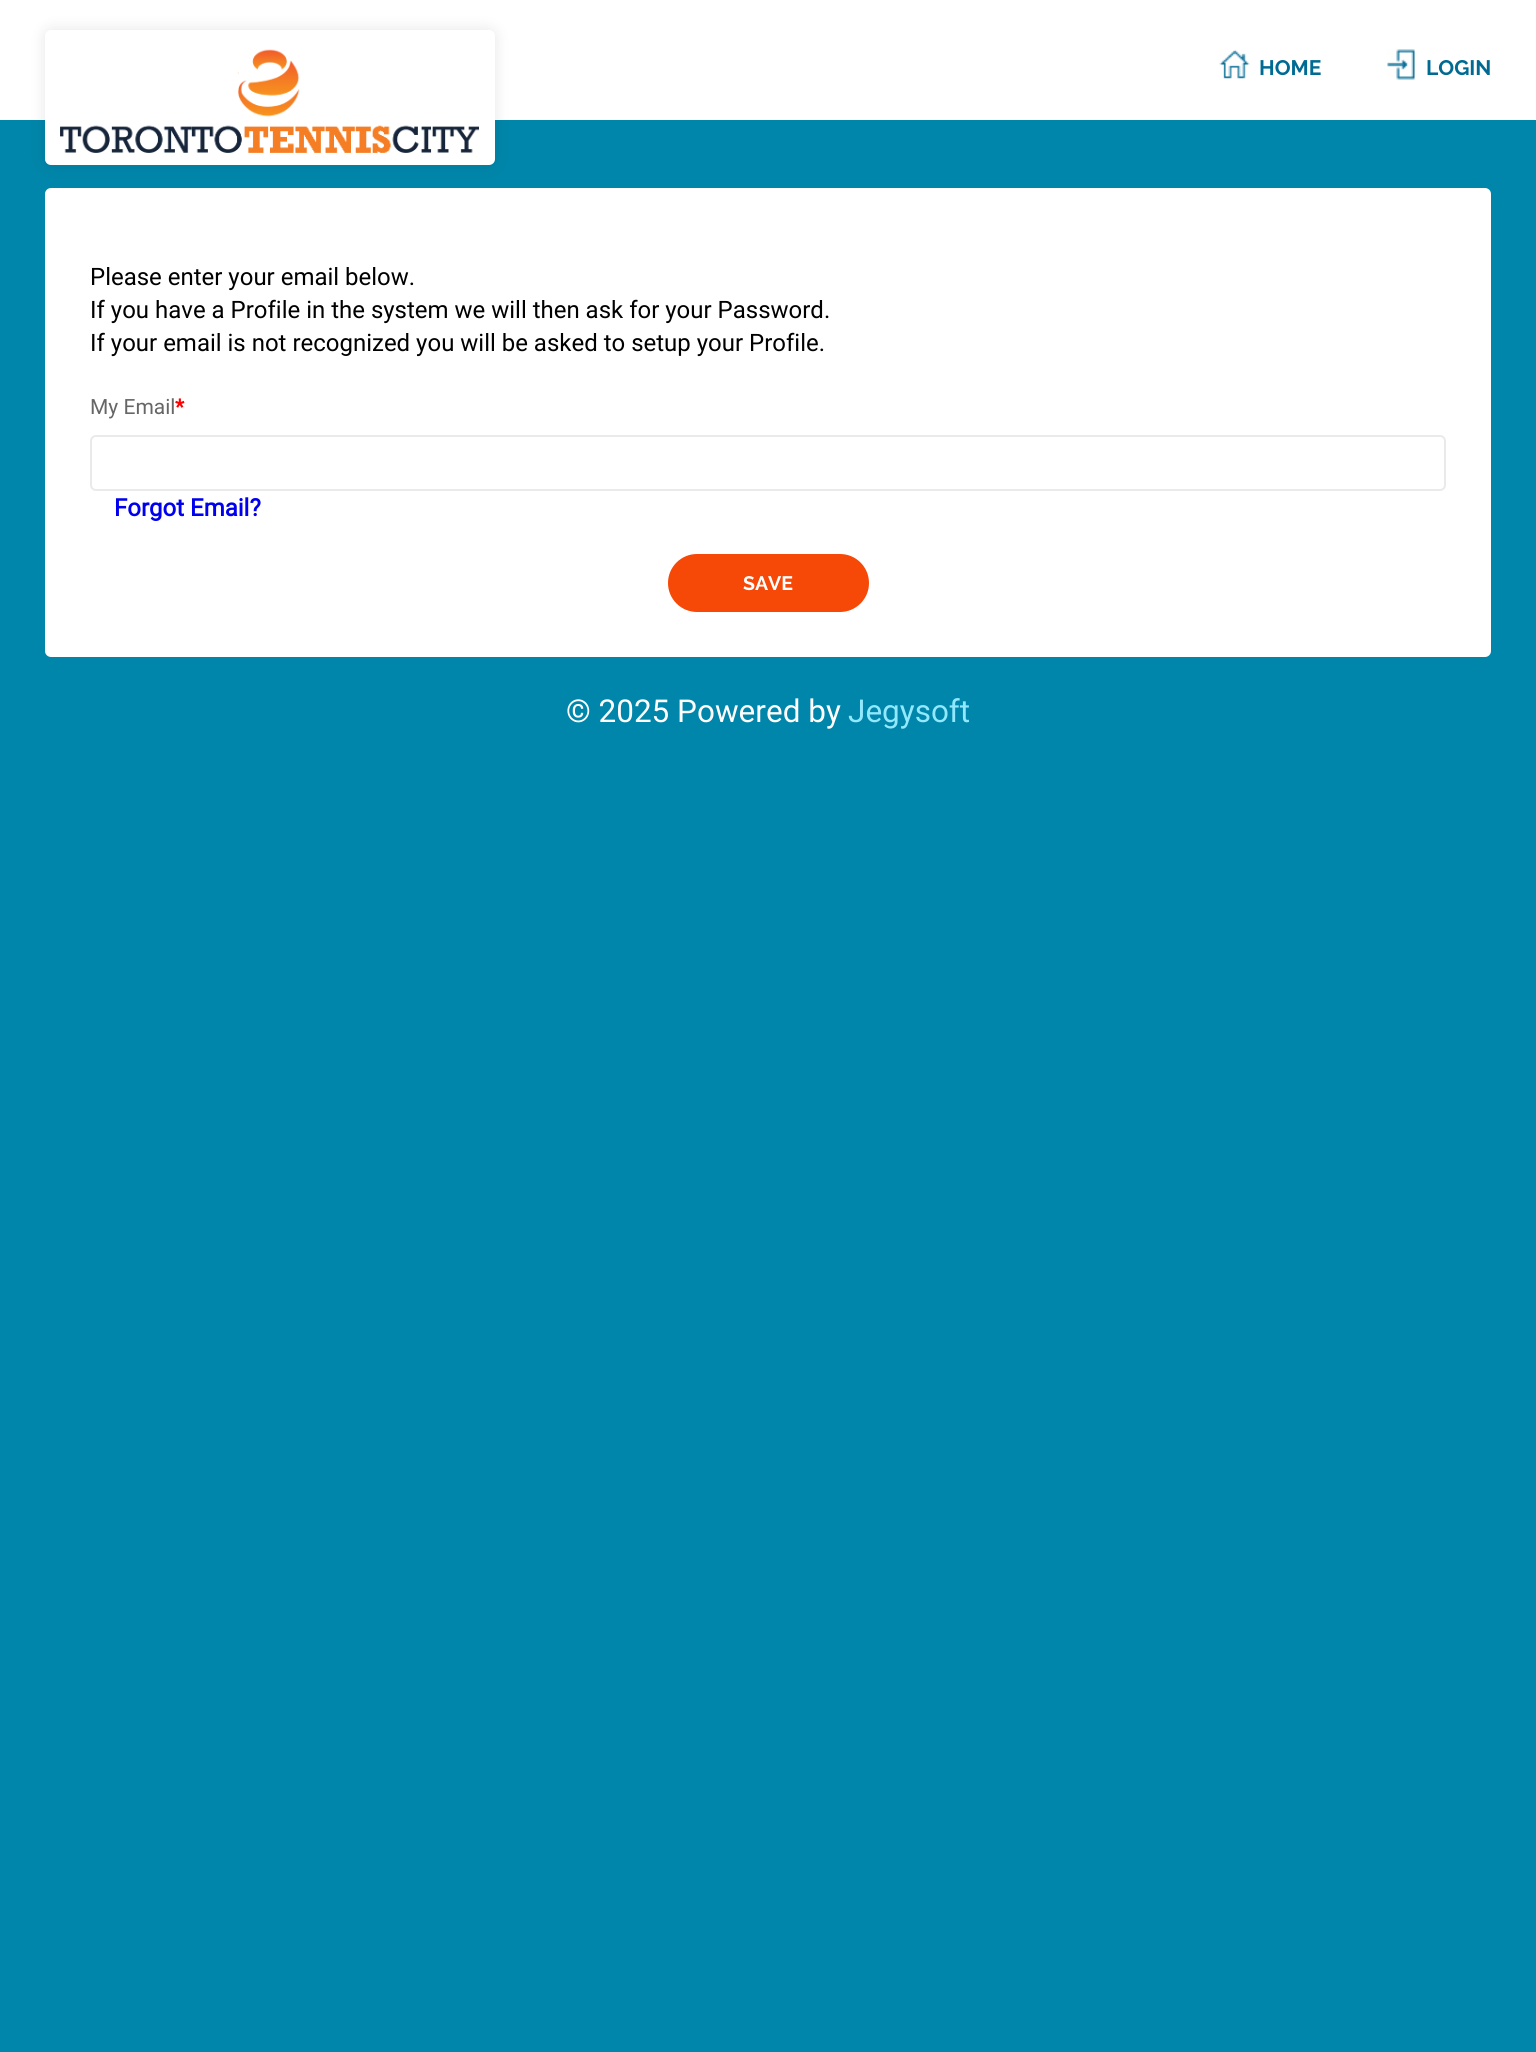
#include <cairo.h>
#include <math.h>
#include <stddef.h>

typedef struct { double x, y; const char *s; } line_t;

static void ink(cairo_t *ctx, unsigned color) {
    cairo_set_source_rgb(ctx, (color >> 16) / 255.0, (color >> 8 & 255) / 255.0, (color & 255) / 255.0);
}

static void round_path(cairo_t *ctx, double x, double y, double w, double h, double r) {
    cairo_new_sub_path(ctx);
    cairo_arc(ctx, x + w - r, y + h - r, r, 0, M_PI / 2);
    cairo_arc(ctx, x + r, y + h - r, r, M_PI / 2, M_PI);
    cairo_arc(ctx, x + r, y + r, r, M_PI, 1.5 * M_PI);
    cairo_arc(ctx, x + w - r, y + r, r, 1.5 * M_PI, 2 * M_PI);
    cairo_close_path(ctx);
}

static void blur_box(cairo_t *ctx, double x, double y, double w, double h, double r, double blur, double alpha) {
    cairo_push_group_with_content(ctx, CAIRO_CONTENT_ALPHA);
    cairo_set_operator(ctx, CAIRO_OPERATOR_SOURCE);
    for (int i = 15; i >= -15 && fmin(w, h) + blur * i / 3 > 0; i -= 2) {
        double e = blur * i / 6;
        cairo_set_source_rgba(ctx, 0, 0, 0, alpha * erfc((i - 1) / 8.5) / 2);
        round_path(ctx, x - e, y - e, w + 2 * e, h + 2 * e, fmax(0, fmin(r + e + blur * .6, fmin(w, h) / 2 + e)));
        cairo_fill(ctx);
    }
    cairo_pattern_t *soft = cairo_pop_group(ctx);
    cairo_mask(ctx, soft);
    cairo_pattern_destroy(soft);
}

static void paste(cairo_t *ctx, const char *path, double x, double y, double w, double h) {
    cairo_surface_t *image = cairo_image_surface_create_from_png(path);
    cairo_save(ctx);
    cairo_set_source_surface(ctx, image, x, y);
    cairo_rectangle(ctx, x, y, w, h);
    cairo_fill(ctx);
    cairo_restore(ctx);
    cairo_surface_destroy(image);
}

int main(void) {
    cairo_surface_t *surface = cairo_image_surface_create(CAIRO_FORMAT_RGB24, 1536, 2052);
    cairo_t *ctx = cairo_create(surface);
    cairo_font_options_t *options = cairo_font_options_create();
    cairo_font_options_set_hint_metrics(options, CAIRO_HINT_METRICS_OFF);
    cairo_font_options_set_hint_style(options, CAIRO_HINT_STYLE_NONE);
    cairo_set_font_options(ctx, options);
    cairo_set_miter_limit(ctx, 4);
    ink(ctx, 0x0086AA);
    cairo_paint(ctx);
    ink(ctx, 0xFFFFFF);
    cairo_rectangle(ctx, 0, 0, 1536, 120);
    cairo_fill(ctx);
    round_path(ctx, 45, 188, 1446, 469, 6);
    cairo_fill(ctx);
    ink(ctx, 0x000000);
    blur_box(ctx, 45, 30, 450, 135, 6, 7.5, 0.1);
    ink(ctx, 0xFFFFFF);
    round_path(ctx, 45, 30, 450, 135, 6);
    cairo_fill(ctx);
    paste(ctx, "media/1.png", 60, 49, 419, 104);
    paste(ctx, "media/2.png", 1219, 49, 31, 30);
    cairo_select_font_face(ctx, "Raleway", CAIRO_FONT_SLANT_NORMAL, CAIRO_FONT_WEIGHT_BOLD);
    cairo_set_font_size(ctx, 21);
    ink(ctx, 0x016A93);
    cairo_move_to(ctx, 1259, 75);
    cairo_show_text(ctx, "HOME");
    paste(ctx, "media/3.png", 1387, 49, 28, 31);
    cairo_move_to(ctx, 1426, 75);
    cairo_show_text(ctx, "LOGIN");
    cairo_select_font_face(ctx, "Roboto", CAIRO_FONT_SLANT_NORMAL, CAIRO_FONT_WEIGHT_NORMAL);
    cairo_set_font_size(ctx, 24);
    ink(ctx, 0x000000);
    {
        static const line_t items[] = {
            {90, 285, "Please enter your email below."},
            {90, 318, "If you have a Profile in the system we will then ask for your Password."},
            {90, 351, "If your email is not recognized you will be asked to setup your Profile."},
        };
        for (size_t i = 0; i < sizeof items / sizeof *items; i++) {
            cairo_move_to(ctx, items[i].x, items[i].y);
            cairo_show_text(ctx, items[i].s);
        }
    }
    cairo_set_font_size(ctx, 21);
    ink(ctx, 0x666666);
    cairo_move_to(ctx, 90, 414);
    cairo_show_text(ctx, "My Email");
    cairo_select_font_face(ctx, "Roboto", CAIRO_FONT_SLANT_NORMAL, CAIRO_FONT_WEIGHT_BOLD);
    ink(ctx, 0xFF0000);
    cairo_move_to(ctx, 175, 414);
    cairo_show_text(ctx, "*");
    round_path(ctx, 91, 436, 1354, 54, 5);
    ink(ctx, 0xEAEAEA);
    cairo_stroke(ctx);
    cairo_set_font_size(ctx, 24);
    ink(ctx, 0x0000EE);
    cairo_move_to(ctx, 114, 516);
    cairo_show_text(ctx, "Forgot Email?");
    ink(ctx, 0xF64807);
    round_path(ctx, 668, 554, 201, 58, 29);
    cairo_fill(ctx);
    cairo_select_font_face(ctx, "Raleway", CAIRO_FONT_SLANT_NORMAL, CAIRO_FONT_WEIGHT_BOLD);
    cairo_set_font_size(ctx, 19.5);
    ink(ctx, 0xFFFFFF);
    cairo_move_to(ctx, 743, 590);
    cairo_show_text(ctx, "SAVE");
    cairo_select_font_face(ctx, "Roboto", CAIRO_FONT_SLANT_NORMAL, CAIRO_FONT_WEIGHT_NORMAL);
    cairo_set_font_size(ctx, 31.5);
    cairo_move_to(ctx, 566, 722);
    cairo_show_text(ctx, "© 2025 Powered by");
    ink(ctx, 0x92E8FF);
    cairo_move_to(ctx, 848, 722);
    cairo_show_text(ctx, "Jegysoft");
    cairo_surface_write_to_png(surface, "image.png");
    cairo_font_options_destroy(options);
    cairo_destroy(ctx);
    cairo_surface_destroy(surface);
    return 0;
}
